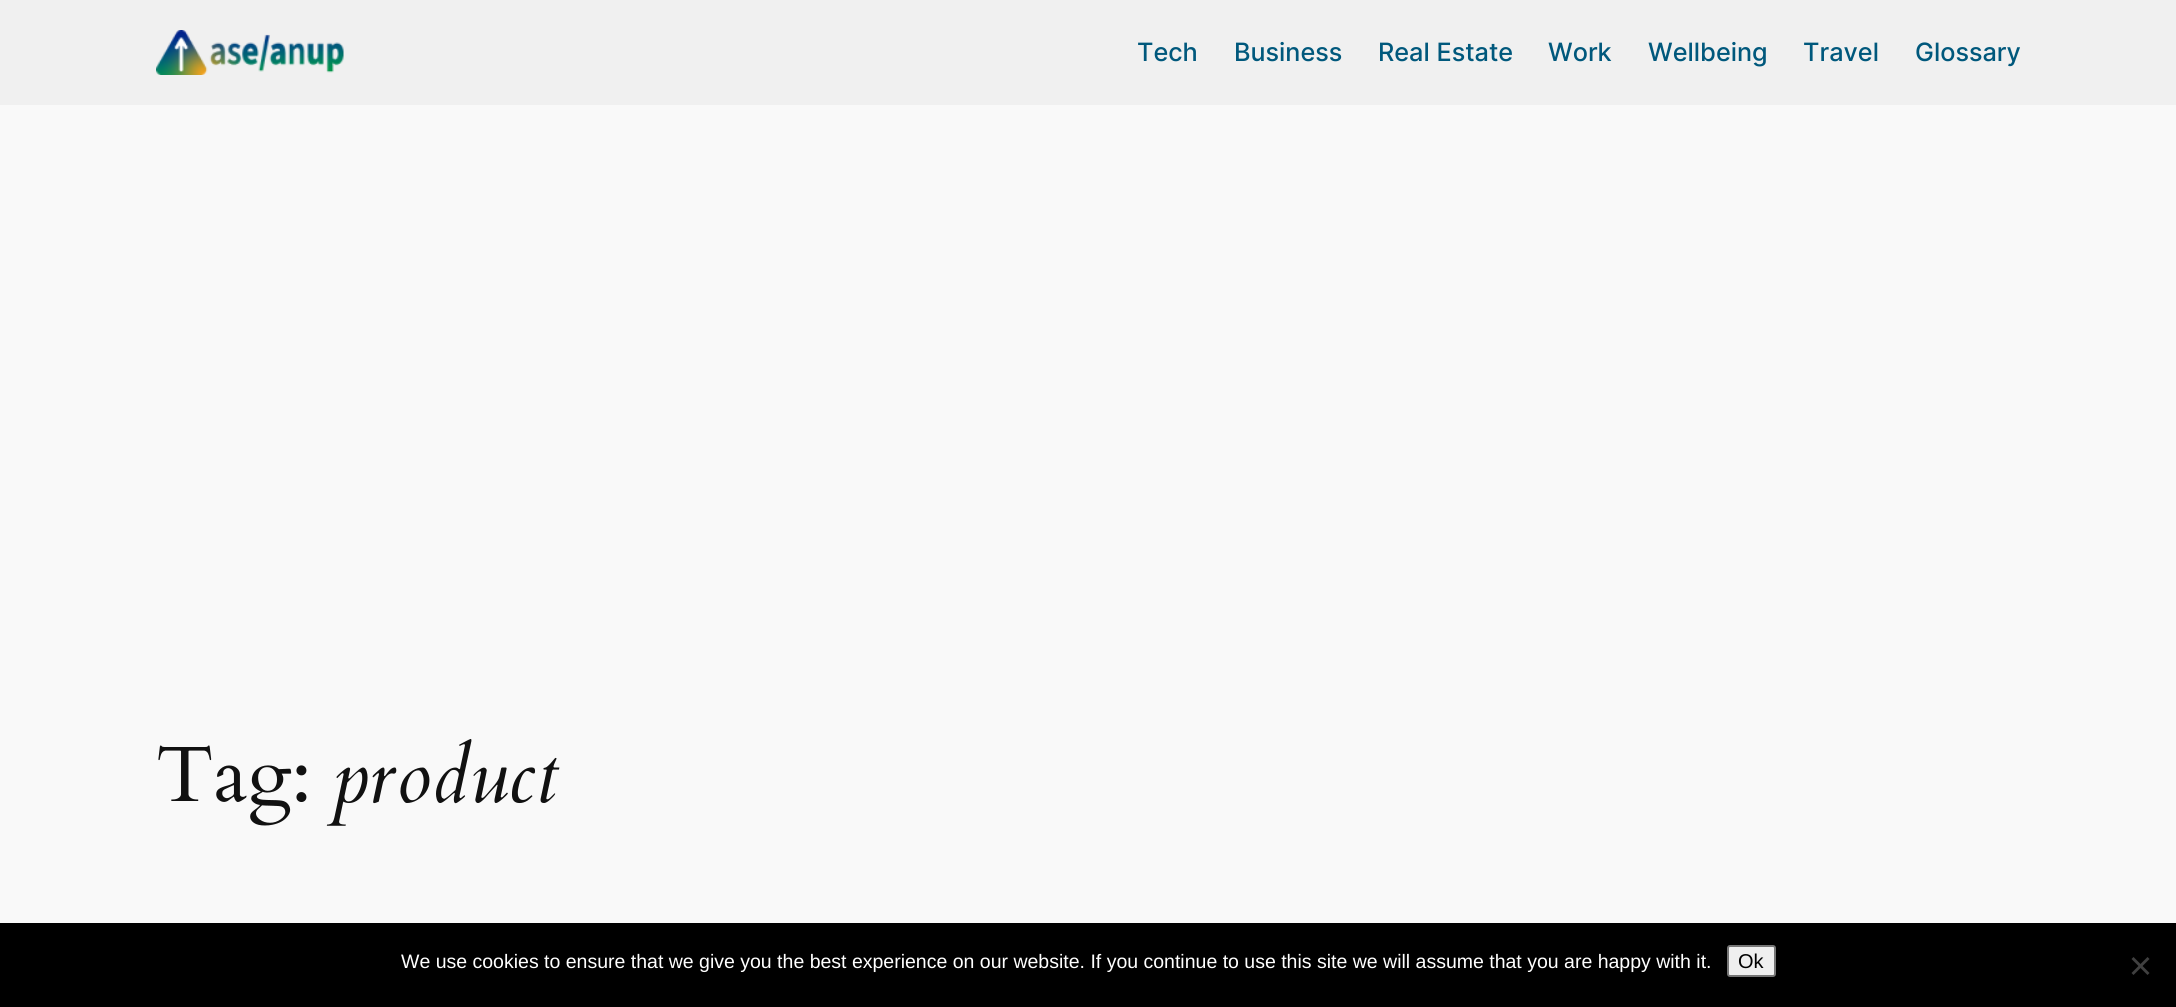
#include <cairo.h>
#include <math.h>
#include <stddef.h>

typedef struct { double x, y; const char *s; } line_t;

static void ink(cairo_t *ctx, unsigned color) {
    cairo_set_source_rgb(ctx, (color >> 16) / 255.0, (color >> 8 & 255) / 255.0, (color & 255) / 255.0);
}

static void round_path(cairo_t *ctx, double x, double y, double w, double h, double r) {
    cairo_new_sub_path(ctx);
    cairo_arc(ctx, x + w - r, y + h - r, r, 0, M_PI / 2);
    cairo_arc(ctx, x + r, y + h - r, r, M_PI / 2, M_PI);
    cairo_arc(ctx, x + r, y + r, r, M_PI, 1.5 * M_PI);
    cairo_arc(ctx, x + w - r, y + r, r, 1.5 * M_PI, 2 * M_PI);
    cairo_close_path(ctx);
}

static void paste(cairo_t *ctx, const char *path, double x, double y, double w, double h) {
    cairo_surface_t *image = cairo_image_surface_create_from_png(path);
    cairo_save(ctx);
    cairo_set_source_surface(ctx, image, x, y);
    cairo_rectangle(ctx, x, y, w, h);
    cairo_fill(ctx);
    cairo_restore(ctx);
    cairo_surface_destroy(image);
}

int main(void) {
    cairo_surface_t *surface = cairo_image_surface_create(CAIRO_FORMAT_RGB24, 2176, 1007);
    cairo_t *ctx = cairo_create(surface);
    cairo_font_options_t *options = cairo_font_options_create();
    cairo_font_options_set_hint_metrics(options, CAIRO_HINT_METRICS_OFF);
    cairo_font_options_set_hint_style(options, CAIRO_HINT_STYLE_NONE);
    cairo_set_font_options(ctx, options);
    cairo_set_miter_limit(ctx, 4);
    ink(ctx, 0xF9F9F9);
    cairo_paint(ctx);
    ink(ctx, 0xF0F0F0);
    cairo_rectangle(ctx, 0, 0, 2176, 105);
    cairo_fill(ctx);
    paste(ctx, "media/1.png", 156, 30, 188, 45);
    cairo_select_font_face(ctx, "Inter Medium", CAIRO_FONT_SLANT_NORMAL, CAIRO_FONT_WEIGHT_NORMAL);
    cairo_set_font_size(ctx, 25.25);
    ink(ctx, 0x00587C);
    {
        static const line_t items[] = {
            {1137, 61, "Tech"},
            {1234, 61, "Business"},
            {1378, 61, "Real Estate"},
            {1548, 61, "Work"},
            {1648, 61, "Wellbeing"},
            {1803, 61, "Travel"},
            {1915, 61, "Glossary"},
        };
        for (size_t i = 0; i < sizeof items / sizeof *items; i++) {
            cairo_move_to(ctx, items[i].x, items[i].y);
            cairo_show_text(ctx, items[i].s);
        }
    }
    paste(ctx, "media/2.png", 158, 745, 149, 81);
    cairo_select_font_face(ctx, "Cardo", CAIRO_FONT_SLANT_ITALIC, CAIRO_FONT_WEIGHT_NORMAL);
    cairo_set_font_size(ctx, 78.5);
    ink(ctx, 0x111111);
    cairo_move_to(ctx, 332, 802);
    cairo_show_text(ctx, "product");
    ink(ctx, 0x000000);
    cairo_rectangle(ctx, 0, 923, 2176, 84);
    cairo_fill(ctx);
    cairo_select_font_face(ctx, "Liberation Sans", CAIRO_FONT_SLANT_NORMAL, CAIRO_FONT_WEIGHT_NORMAL);
    cairo_set_font_size(ctx, 19.5);
    ink(ctx, 0xFFFFFF);
    cairo_move_to(ctx, 401, 968);
    cairo_show_text(ctx, "We use cookies to ensure that we give you the best experience on our website. If you continue to use this site we will assume that you are happy with it.");
    ink(ctx, 0xEFEFEF);
    round_path(ctx, 1728, 946, 47, 30, 2);
    cairo_fill_preserve(ctx);
    ink(ctx, 0x767676);
    cairo_stroke(ctx);
    cairo_set_font_size(ctx, 20);
    ink(ctx, 0x000000);
    cairo_move_to(ctx, 1738, 968);
    cairo_show_text(ctx, "Ok");
    ink(ctx, 0x404040);
    cairo_new_path(ctx);
    cairo_move_to(ctx, 2147.5, 957);
    cairo_line_to(ctx, 2149.5, 959);
    cairo_line_to(ctx, 2133.5, 975);
    cairo_line_to(ctx, 2131.5, 973);
    cairo_close_path(ctx);
    cairo_fill(ctx);
    cairo_new_path(ctx);
    cairo_move_to(ctx, 2131.5, 959);
    cairo_line_to(ctx, 2133.5, 957);
    cairo_line_to(ctx, 2149.5, 973);
    cairo_line_to(ctx, 2147.5, 975);
    cairo_close_path(ctx);
    cairo_fill(ctx);
    cairo_surface_write_to_png(surface, "image.png");
    cairo_font_options_destroy(options);
    cairo_destroy(ctx);
    cairo_surface_destroy(surface);
    return 0;
}
